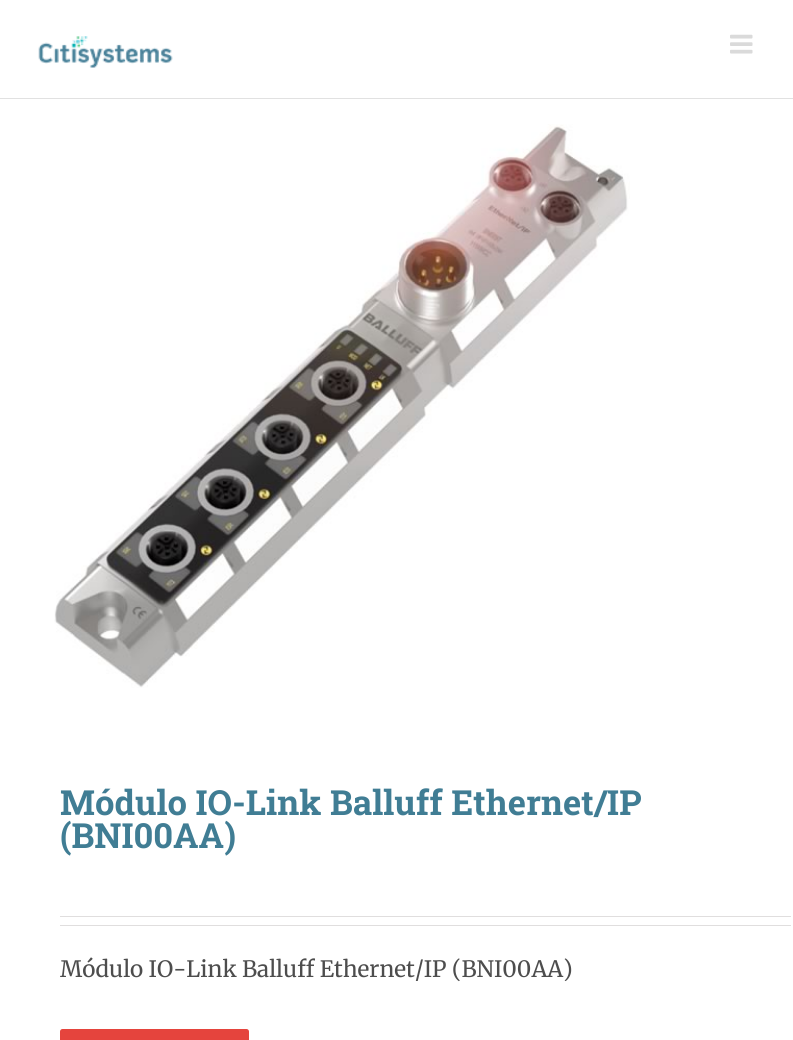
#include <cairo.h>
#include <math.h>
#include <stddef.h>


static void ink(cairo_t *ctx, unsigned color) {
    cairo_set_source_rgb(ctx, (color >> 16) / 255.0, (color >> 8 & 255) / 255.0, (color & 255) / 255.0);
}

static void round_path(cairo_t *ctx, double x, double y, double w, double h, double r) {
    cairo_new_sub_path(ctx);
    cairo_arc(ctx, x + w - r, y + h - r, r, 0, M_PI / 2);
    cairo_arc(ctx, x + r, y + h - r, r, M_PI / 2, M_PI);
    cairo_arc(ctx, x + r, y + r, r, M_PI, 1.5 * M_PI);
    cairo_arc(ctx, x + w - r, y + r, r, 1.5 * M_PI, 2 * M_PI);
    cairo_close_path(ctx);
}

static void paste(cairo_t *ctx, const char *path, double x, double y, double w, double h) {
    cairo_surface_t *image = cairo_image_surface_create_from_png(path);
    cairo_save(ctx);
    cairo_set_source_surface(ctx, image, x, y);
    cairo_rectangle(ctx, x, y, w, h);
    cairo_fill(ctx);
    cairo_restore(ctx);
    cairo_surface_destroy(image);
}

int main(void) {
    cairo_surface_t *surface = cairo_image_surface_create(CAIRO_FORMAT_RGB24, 793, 1040);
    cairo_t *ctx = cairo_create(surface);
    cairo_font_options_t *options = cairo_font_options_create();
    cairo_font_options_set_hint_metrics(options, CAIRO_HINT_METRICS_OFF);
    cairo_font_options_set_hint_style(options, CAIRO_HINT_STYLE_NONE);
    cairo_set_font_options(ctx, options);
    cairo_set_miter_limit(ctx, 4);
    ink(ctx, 0xFFFFFF);
    cairo_paint(ctx);
    ink(ctx, 0xE1E1E1);
    cairo_rectangle(ctx, 0, 98, 793, 1);
    cairo_fill(ctx);
    paste(ctx, "media/1.png", 38, 36, 135, 32);
    paste(ctx, "media/2.png", 730, 34, 23, 20);
    paste(ctx, "media/3.png", 54, 124, 576, 564);
    cairo_select_font_face(ctx, "Roboto Slab", CAIRO_FONT_SLANT_NORMAL, CAIRO_FONT_WEIGHT_BOLD);
    cairo_set_font_size(ctx, 34.6);
    ink(ctx, 0x407D94);
    cairo_move_to(ctx, 60, 815);
    cairo_show_text(ctx, "Módulo IO-Link Balluff Ethernet/IP");
    cairo_move_to(ctx, 60, 848);
    cairo_show_text(ctx, "(BNI00AA)");
    ink(ctx, 0xE0DEDE);
    cairo_rectangle(ctx, 60, 916, 731, 1);
    cairo_fill(ctx);
    cairo_rectangle(ctx, 60, 925, 731, 1);
    cairo_fill(ctx);
    cairo_select_font_face(ctx, "Merriweather", CAIRO_FONT_SLANT_NORMAL, CAIRO_FONT_WEIGHT_NORMAL);
    cairo_set_font_size(ctx, 22.5);
    ink(ctx, 0x4D4D4D);
    cairo_move_to(ctx, 60, 977);
    cairo_show_text(ctx, "Módulo IO-Link Balluff Ethernet/IP (BNI00AA)");
    ink(ctx, 0xE5443D);
    round_path(ctx, 60, 1029, 189, 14, 2.5);
    cairo_fill(ctx);
    cairo_surface_write_to_png(surface, "image.png");
    cairo_font_options_destroy(options);
    cairo_destroy(ctx);
    cairo_surface_destroy(surface);
    return 0;
}
